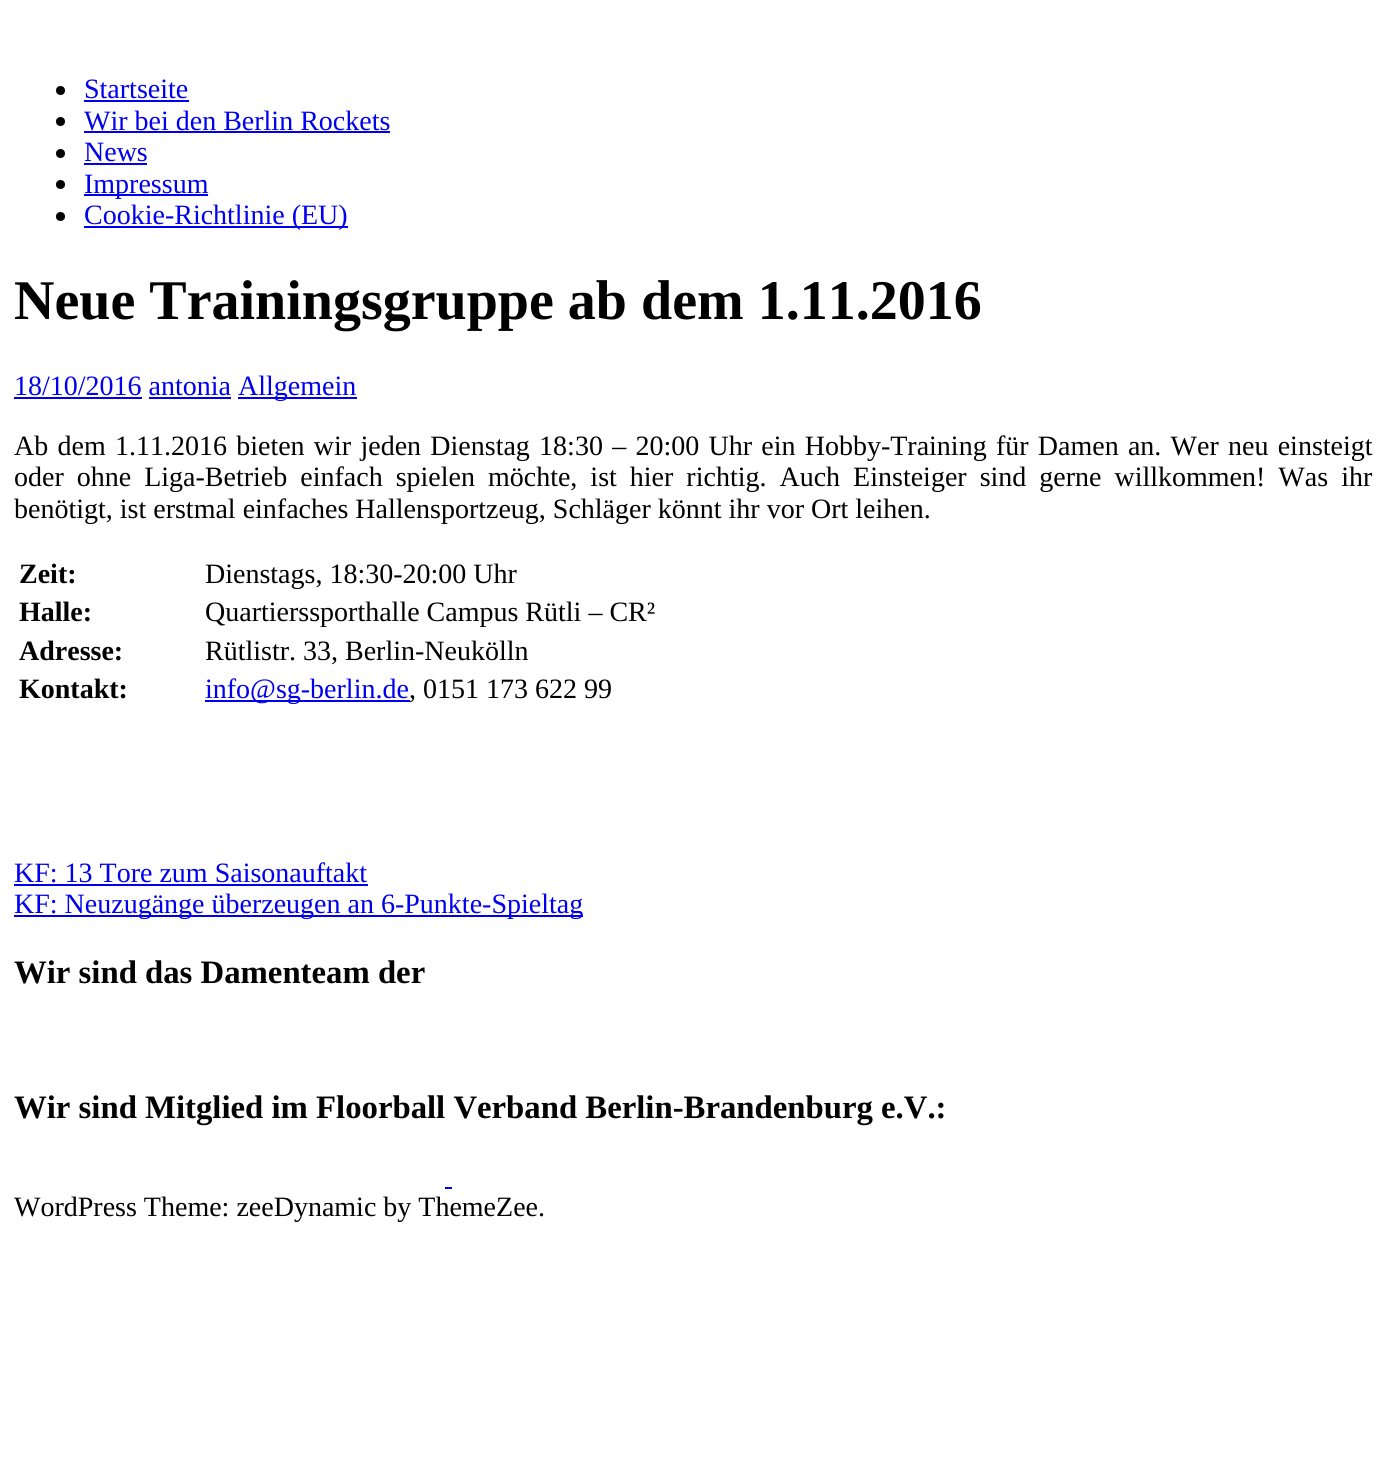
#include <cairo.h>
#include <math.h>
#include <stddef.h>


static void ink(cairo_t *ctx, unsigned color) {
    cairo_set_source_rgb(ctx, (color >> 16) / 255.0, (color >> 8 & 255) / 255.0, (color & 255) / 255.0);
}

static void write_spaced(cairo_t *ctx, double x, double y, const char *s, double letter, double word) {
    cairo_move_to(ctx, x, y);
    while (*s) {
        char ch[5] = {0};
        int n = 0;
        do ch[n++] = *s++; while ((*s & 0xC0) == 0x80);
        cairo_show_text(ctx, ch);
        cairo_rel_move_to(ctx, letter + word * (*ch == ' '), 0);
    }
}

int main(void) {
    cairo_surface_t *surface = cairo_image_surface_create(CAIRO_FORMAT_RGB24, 1385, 1461);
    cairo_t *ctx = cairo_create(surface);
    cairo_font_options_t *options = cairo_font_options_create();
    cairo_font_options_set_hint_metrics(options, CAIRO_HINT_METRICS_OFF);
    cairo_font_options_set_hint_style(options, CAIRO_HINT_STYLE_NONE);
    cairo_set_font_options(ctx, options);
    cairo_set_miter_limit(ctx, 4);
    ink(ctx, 0xFFFFFF);
    cairo_paint(ctx);
    ink(ctx, 0x000000);
    cairo_arc(ctx, 60.5, 90.5, 4.5, 0, 2 * M_PI);
    cairo_fill(ctx);
    cairo_select_font_face(ctx, "Liberation Serif", CAIRO_FONT_SLANT_NORMAL, CAIRO_FONT_WEIGHT_NORMAL);
    cairo_set_font_size(ctx, 28);
    ink(ctx, 0x0000EE);
    cairo_move_to(ctx, 84, 98);
    cairo_show_text(ctx, "Startseite");
    cairo_rectangle(ctx, 84, 100, 105, 2);
    cairo_fill(ctx);
    ink(ctx, 0x000000);
    cairo_arc(ctx, 60.5, 121.5, 4.5, 0, 2 * M_PI);
    cairo_fill(ctx);
    ink(ctx, 0x0000EE);
    cairo_move_to(ctx, 84, 130);
    cairo_show_text(ctx, "Wir bei den Berlin Rockets");
    cairo_rectangle(ctx, 84, 131, 306, 2);
    cairo_fill(ctx);
    ink(ctx, 0x000000);
    cairo_arc(ctx, 60.5, 153.5, 4.5, 0, 2 * M_PI);
    cairo_fill(ctx);
    ink(ctx, 0x0000EE);
    cairo_move_to(ctx, 84, 161);
    cairo_show_text(ctx, "News");
    cairo_rectangle(ctx, 84, 163, 63, 2);
    cairo_fill(ctx);
    ink(ctx, 0x000000);
    cairo_arc(ctx, 60.5, 184.5, 4.5, 0, 2 * M_PI);
    cairo_fill(ctx);
    ink(ctx, 0x0000EE);
    cairo_rectangle(ctx, 84, 194, 124, 2);
    cairo_fill(ctx);
    cairo_move_to(ctx, 84, 193);
    cairo_show_text(ctx, "Impressum");
    ink(ctx, 0x000000);
    cairo_new_path(ctx);
    cairo_arc(ctx, 60.5, 216.5, 4.5, 0, 2 * M_PI);
    cairo_fill(ctx);
    ink(ctx, 0x0000EE);
    cairo_rectangle(ctx, 84, 226, 264, 2);
    cairo_fill(ctx);
    cairo_move_to(ctx, 84, 224);
    cairo_show_text(ctx, "Cookie-Richtlinie (EU)");
    cairo_select_font_face(ctx, "Liberation Serif", CAIRO_FONT_SLANT_NORMAL, CAIRO_FONT_WEIGHT_BOLD);
    cairo_set_font_size(ctx, 56);
    ink(ctx, 0x000000);
    cairo_move_to(ctx, 14, 319);
    cairo_show_text(ctx, "Neue Trainingsgruppe ab dem 1.11.2016");
    cairo_select_font_face(ctx, "Liberation Serif", CAIRO_FONT_SLANT_NORMAL, CAIRO_FONT_WEIGHT_NORMAL);
    cairo_set_font_size(ctx, 28);
    ink(ctx, 0x0000EE);
    cairo_move_to(ctx, 14, 395);
    cairo_show_text(ctx, "18/10/2016 antonia");
    cairo_rectangle(ctx, 14, 397, 128, 2);
    cairo_fill(ctx);
    cairo_rectangle(ctx, 238, 397, 119, 2);
    cairo_fill(ctx);
    cairo_move_to(ctx, 238, 395);
    cairo_show_text(ctx, "Allgemein");
    cairo_rectangle(ctx, 149, 397, 82, 2);
    cairo_fill(ctx);
    ink(ctx, 0x000000);
    write_spaced(ctx, 14, 455, "Ab dem 1.11.2016 bieten wir jeden Dienstag 18:30 – 20:00 Uhr ein Hobby-Training für Damen an. Wer neu einsteigt", 0, 2.25);
    write_spaced(ctx, 14, 486, "oder ohne Liga-Betrieb einfach spielen möchte, ist hier richtig. Auch Einsteiger sind gerne willkommen! Was ihr", 0, 6);
    cairo_move_to(ctx, 14, 518);
    cairo_show_text(ctx, "benötigt, ist erstmal einfaches Hallensportzeug, Schläger könnt ihr vor Ort leihen.");
    cairo_select_font_face(ctx, "Liberation Serif", CAIRO_FONT_SLANT_NORMAL, CAIRO_FONT_WEIGHT_BOLD);
    cairo_move_to(ctx, 19, 583);
    cairo_show_text(ctx, "Zeit:");
    cairo_select_font_face(ctx, "Liberation Serif", CAIRO_FONT_SLANT_NORMAL, CAIRO_FONT_WEIGHT_NORMAL);
    cairo_move_to(ctx, 205, 583);
    cairo_show_text(ctx, "Dienstags, 18:30-20:00 Uhr");
    cairo_select_font_face(ctx, "Liberation Serif", CAIRO_FONT_SLANT_NORMAL, CAIRO_FONT_WEIGHT_BOLD);
    cairo_move_to(ctx, 19, 621);
    cairo_show_text(ctx, "Halle:");
    cairo_select_font_face(ctx, "Liberation Serif", CAIRO_FONT_SLANT_NORMAL, CAIRO_FONT_WEIGHT_NORMAL);
    cairo_move_to(ctx, 205, 621);
    cairo_show_text(ctx, "Quartierssporthalle Campus Rütli – CR²");
    cairo_select_font_face(ctx, "Liberation Serif", CAIRO_FONT_SLANT_NORMAL, CAIRO_FONT_WEIGHT_BOLD);
    cairo_move_to(ctx, 19, 660);
    cairo_show_text(ctx, "Adresse:");
    cairo_select_font_face(ctx, "Liberation Serif", CAIRO_FONT_SLANT_NORMAL, CAIRO_FONT_WEIGHT_NORMAL);
    cairo_move_to(ctx, 205, 660);
    cairo_show_text(ctx, "Rütlistr. 33, Berlin-Neukölln");
    cairo_select_font_face(ctx, "Liberation Serif", CAIRO_FONT_SLANT_NORMAL, CAIRO_FONT_WEIGHT_BOLD);
    cairo_move_to(ctx, 19, 698);
    cairo_show_text(ctx, "Kontakt:");
    ink(ctx, 0x0000EE);
    cairo_rectangle(ctx, 205, 700, 205, 2);
    cairo_fill(ctx);
    cairo_select_font_face(ctx, "Liberation Serif", CAIRO_FONT_SLANT_NORMAL, CAIRO_FONT_WEIGHT_NORMAL);
    cairo_move_to(ctx, 205, 698);
    cairo_show_text(ctx, "info@sg-berlin.de");
    ink(ctx, 0x000000);
    cairo_move_to(ctx, 409, 698);
    cairo_show_text(ctx, ", 0151 173 622 99");
    ink(ctx, 0x0000EE);
    cairo_move_to(ctx, 14, 882);
    cairo_show_text(ctx, "KF: 13 Tore zum Saisonauftakt");
    cairo_rectangle(ctx, 14, 884, 354, 2);
    cairo_fill(ctx);
    cairo_rectangle(ctx, 14, 915, 569, 2);
    cairo_fill(ctx);
    cairo_move_to(ctx, 14, 913);
    cairo_show_text(ctx, "KF: Neuzugänge überzeugen an 6-Punkte-Spieltag");
    cairo_select_font_face(ctx, "Liberation Serif", CAIRO_FONT_SLANT_NORMAL, CAIRO_FONT_WEIGHT_BOLD);
    cairo_set_font_size(ctx, 32.75);
    ink(ctx, 0x000000);
    cairo_move_to(ctx, 14, 983);
    cairo_show_text(ctx, "Wir sind das Damenteam der");
    cairo_move_to(ctx, 14, 1118);
    cairo_show_text(ctx, "Wir sind Mitglied im Floorball Verband Berlin-Brandenburg e.V.:");
    ink(ctx, 0x0000EE);
    cairo_rectangle(ctx, 445, 1187, 7, 2);
    cairo_fill(ctx);
    cairo_select_font_face(ctx, "Liberation Serif", CAIRO_FONT_SLANT_NORMAL, CAIRO_FONT_WEIGHT_NORMAL);
    cairo_set_font_size(ctx, 28);
    ink(ctx, 0x000000);
    cairo_move_to(ctx, 14, 1216);
    cairo_show_text(ctx, "WordPress Theme: zeeDynamic by ThemeZee.");
    cairo_surface_write_to_png(surface, "image.png");
    cairo_font_options_destroy(options);
    cairo_destroy(ctx);
    cairo_surface_destroy(surface);
    return 0;
}
